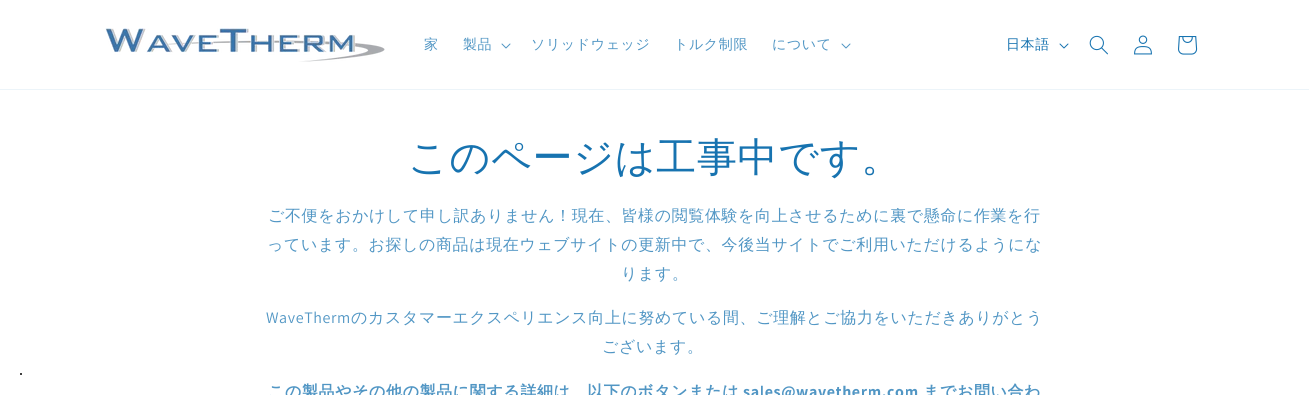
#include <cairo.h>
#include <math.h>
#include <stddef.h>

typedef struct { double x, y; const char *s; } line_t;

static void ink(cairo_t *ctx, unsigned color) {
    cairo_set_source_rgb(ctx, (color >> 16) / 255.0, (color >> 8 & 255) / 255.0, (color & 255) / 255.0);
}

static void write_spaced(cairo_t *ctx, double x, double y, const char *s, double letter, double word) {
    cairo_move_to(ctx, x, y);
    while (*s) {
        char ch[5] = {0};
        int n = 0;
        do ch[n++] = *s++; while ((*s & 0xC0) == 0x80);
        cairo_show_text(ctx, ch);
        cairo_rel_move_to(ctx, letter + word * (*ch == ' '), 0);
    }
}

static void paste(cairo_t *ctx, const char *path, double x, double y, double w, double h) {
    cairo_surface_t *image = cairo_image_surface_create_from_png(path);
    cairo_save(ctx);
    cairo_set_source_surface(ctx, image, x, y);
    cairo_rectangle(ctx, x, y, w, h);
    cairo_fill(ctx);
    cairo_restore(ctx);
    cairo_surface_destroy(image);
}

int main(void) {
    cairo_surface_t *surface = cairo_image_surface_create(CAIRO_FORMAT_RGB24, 1309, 395);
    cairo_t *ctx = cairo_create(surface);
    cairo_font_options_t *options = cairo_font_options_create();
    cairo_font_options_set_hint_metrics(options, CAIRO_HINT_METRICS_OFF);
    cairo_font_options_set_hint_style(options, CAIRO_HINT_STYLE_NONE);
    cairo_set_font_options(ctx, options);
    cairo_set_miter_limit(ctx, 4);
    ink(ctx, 0xFFFFFF);
    cairo_paint(ctx);
    ink(ctx, 0xECF4F9);
    cairo_rectangle(ctx, 0, 89, 1309, 1);
    cairo_fill(ctx);
    paste(ctx, "media/1.png", 105, 28, 280, 34);
    cairo_select_font_face(ctx, "WenQuanYi Zen Hei Medium", CAIRO_FONT_SLANT_NORMAL, CAIRO_FONT_WEIGHT_NORMAL);
    cairo_set_font_size(ctx, 14);
    ink(ctx, 0x5196C4);
    write_spaced(ctx, 424, 49, "家", 0.6, 0);
    write_spaced(ctx, 463, 49, "製品", 0.6, 0);
    paste(ctx, "media/2.png", 501, 43, 10, 6);
    {
        static const line_t items[] = {
            {531, 49, "ソリッドウェッジ"},
            {674, 49, "トルク制限"},
            {772, 49, "について"},
        };
        for (size_t i = 0; i < sizeof items / sizeof *items; i++) {
            write_spaced(ctx, items[i].x, items[i].y, items[i].s, 0.6, 0);
        }
    }
    paste(ctx, "media/2.png", 841, 43, 10, 6);
    ink(ctx, 0x1773B0);
    write_spaced(ctx, 1006, 49, "日本語", 0.6, 0);
    paste(ctx, "media/3.png", 1059, 43, 10, 6);
    paste(ctx, "media/4.png", 1089, 35, 19, 20);
    paste(ctx, "media/5.png", 1134, 35, 18, 20);
    paste(ctx, "media/6.png", 1178, 36, 20, 19);
    ink(ctx, 0x000000);
    cairo_arc(ctx, 21, 374, 1, 0, 2 * M_PI);
    cairo_fill(ctx);
    cairo_set_font_size(ctx, 40);
    ink(ctx, 0x1773B0);
    write_spaced(ctx, 408, 171, "このページは工事中です。", 0.6, 0);
    cairo_set_font_size(ctx, 16);
    ink(ctx, 0x5196C4);
    {
        static const line_t items[] = {
            {268, 221, "ご不便をおかけして申し訳ありません！現在、皆様の閲覧体験を向上させるために裏で懸命に作業を行"},
            {267, 250, "っています。お探しの商品は現在ウェブサイトの更新中で、今後当サイトでご利用いただけるようにな"},
            {621, 279, "ります。"},
        };
        for (size_t i = 0; i < sizeof items / sizeof *items; i++) {
            write_spaced(ctx, items[i].x, items[i].y, items[i].s, 0.6, 0);
        }
    }
    cairo_select_font_face(ctx, "Assistant", CAIRO_FONT_SLANT_NORMAL, CAIRO_FONT_WEIGHT_NORMAL);
    write_spaced(ctx, 266, 323, "WaveTherm", 0.6, 0);
    cairo_select_font_face(ctx, "WenQuanYi Zen Hei Medium", CAIRO_FONT_SLANT_NORMAL, CAIRO_FONT_WEIGHT_NORMAL);
    write_spaced(ctx, 351, 323, "のカスタマーエクスペリエンス向上に努めている間、ご理解とご協力をいただきありがとう", 0.6, 0);
    write_spaced(ctx, 602, 352, "ございます。", 0.6, 0);
    cairo_select_font_face(ctx, "WenQuanYi Zen Hei", CAIRO_FONT_SLANT_NORMAL, CAIRO_FONT_WEIGHT_BOLD);
    write_spaced(ctx, 268, 397, "この製品やその他の製品に関する詳細は、以下のボタンまたは", 0.6, 0);
    cairo_select_font_face(ctx, "Assistant", CAIRO_FONT_SLANT_NORMAL, CAIRO_FONT_WEIGHT_BOLD);
    write_spaced(ctx, 743, 397, "sales@wavetherm.com", 0.6, 0);
    cairo_select_font_face(ctx, "WenQuanYi Zen Hei", CAIRO_FONT_SLANT_NORMAL, CAIRO_FONT_WEIGHT_BOLD);
    write_spaced(ctx, 923, 397, "までお問い合わ", 0.6, 0);
    cairo_surface_write_to_png(surface, "image.png");
    cairo_font_options_destroy(options);
    cairo_destroy(ctx);
    cairo_surface_destroy(surface);
    return 0;
}
